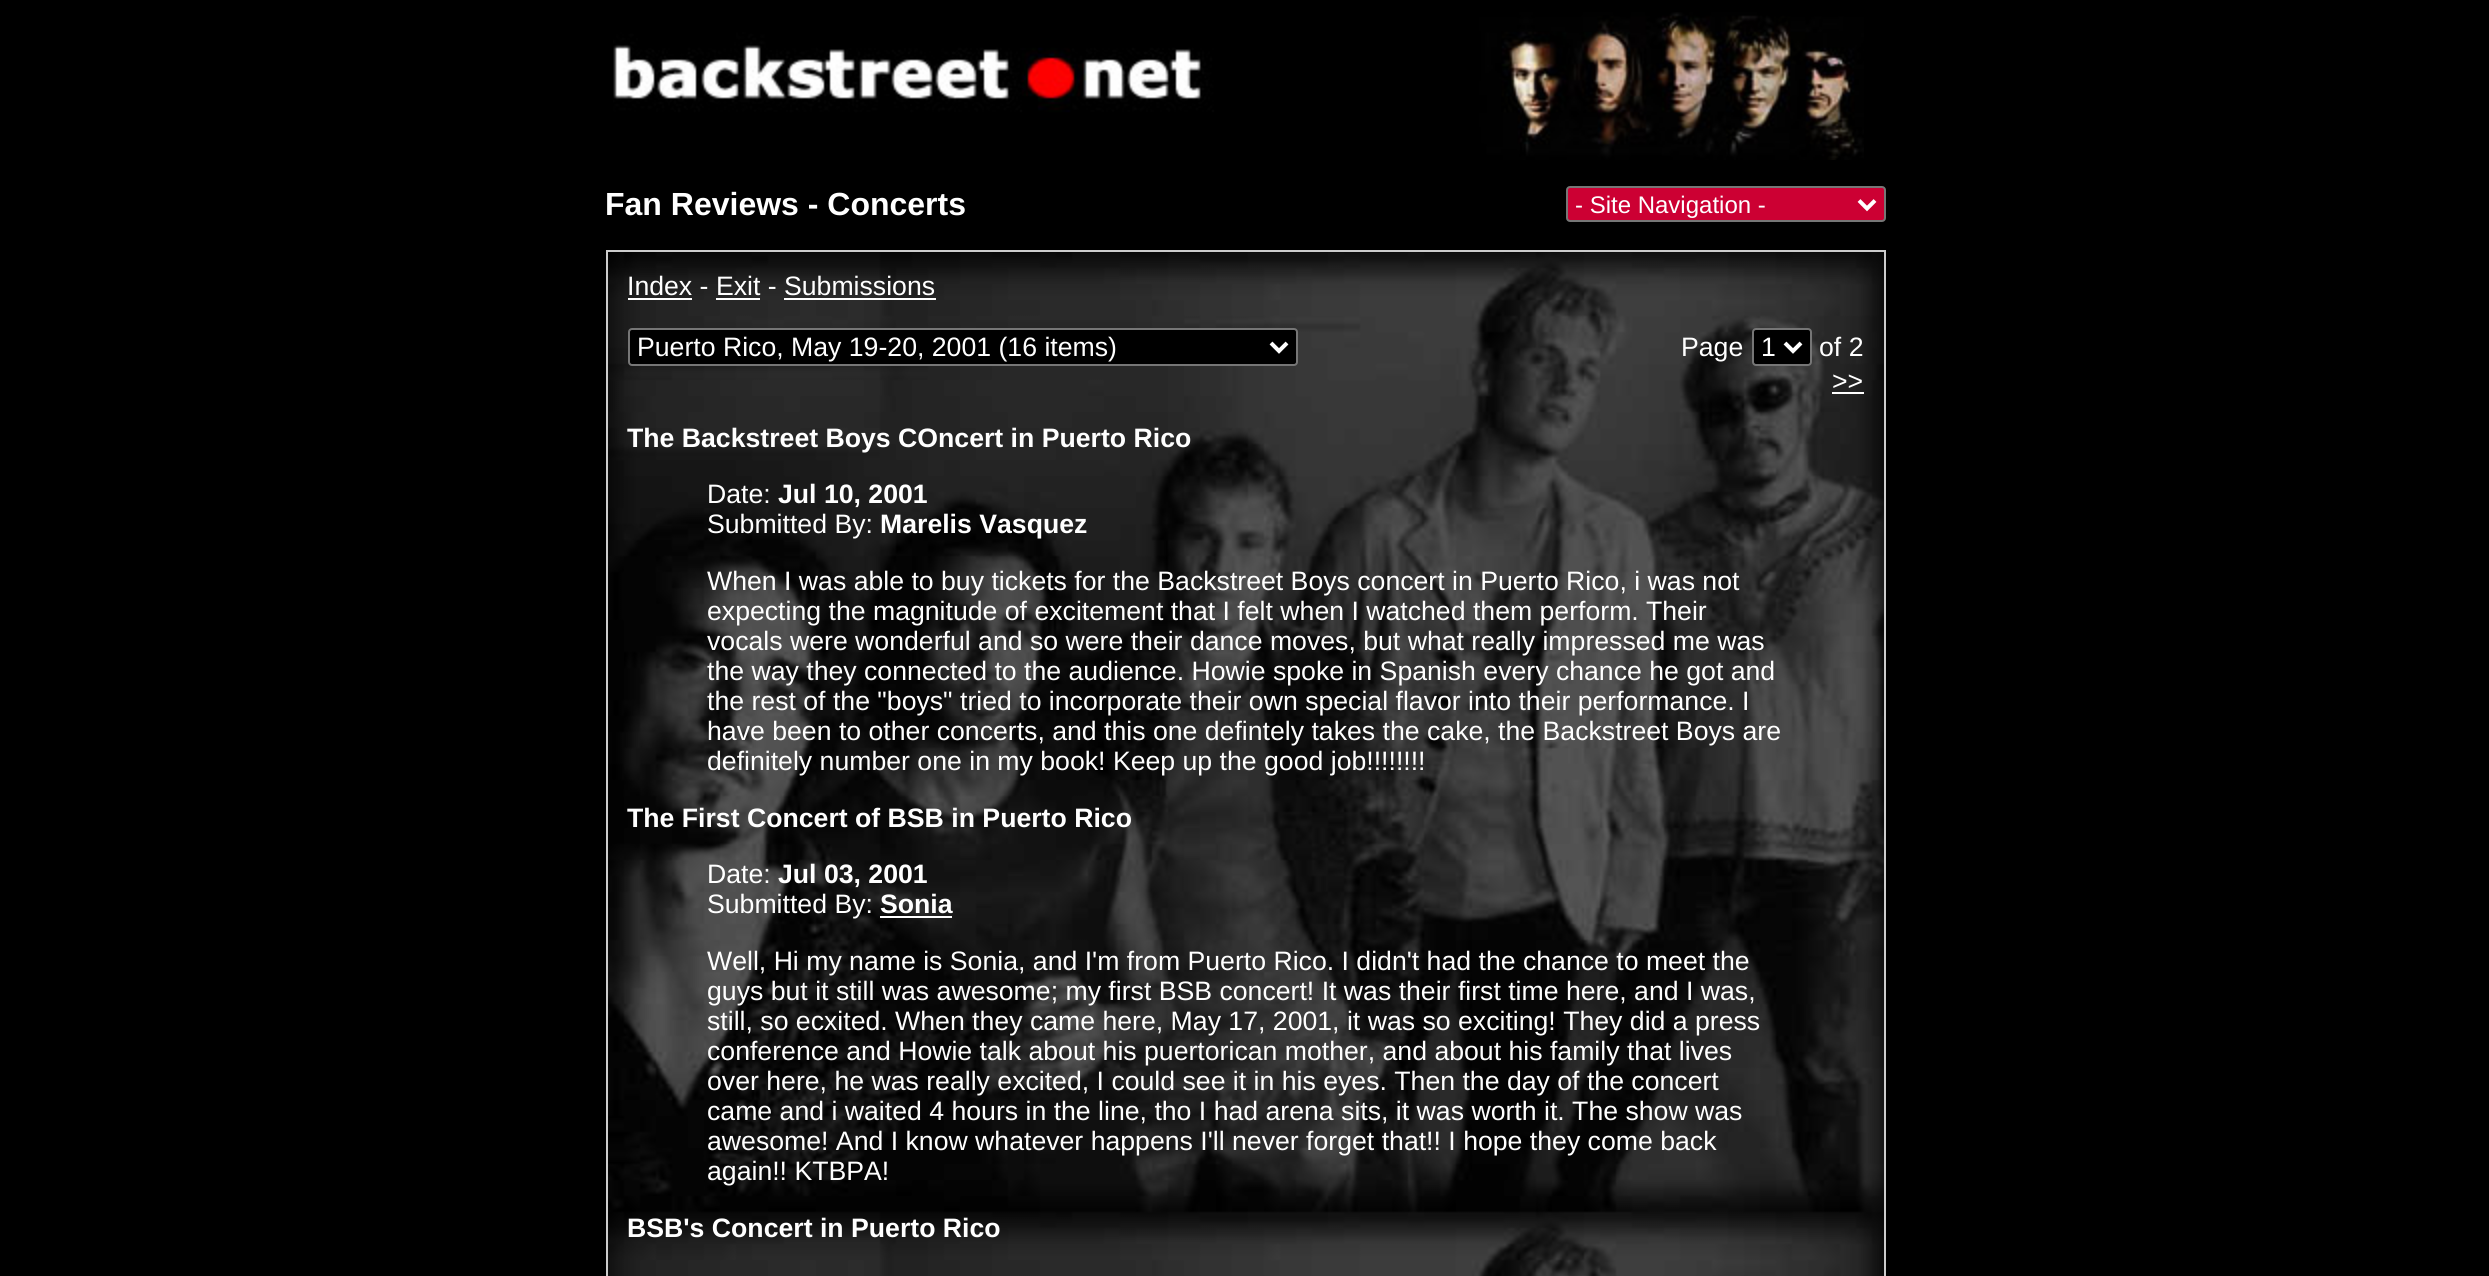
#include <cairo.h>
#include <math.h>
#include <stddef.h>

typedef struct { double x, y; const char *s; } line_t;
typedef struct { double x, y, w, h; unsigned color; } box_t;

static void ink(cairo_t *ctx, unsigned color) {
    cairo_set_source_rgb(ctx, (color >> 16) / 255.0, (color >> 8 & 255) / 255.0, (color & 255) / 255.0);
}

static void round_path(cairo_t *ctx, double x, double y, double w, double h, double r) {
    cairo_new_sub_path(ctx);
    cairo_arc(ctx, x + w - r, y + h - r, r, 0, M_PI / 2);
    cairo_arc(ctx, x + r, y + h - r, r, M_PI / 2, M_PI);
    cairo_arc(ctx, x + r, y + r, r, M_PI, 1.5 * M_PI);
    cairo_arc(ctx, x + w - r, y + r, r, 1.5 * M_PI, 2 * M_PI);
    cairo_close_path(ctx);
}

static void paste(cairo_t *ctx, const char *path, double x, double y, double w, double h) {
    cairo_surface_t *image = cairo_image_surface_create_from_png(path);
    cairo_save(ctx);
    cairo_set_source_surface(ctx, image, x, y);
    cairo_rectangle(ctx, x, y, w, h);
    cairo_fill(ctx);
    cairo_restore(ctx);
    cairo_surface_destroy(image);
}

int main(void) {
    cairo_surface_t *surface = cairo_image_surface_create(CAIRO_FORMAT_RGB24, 2489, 1276);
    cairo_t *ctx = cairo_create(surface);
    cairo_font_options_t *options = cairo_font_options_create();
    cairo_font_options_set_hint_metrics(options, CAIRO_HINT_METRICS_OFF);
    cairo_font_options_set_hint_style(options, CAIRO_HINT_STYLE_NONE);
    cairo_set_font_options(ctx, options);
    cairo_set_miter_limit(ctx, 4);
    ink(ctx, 0x000000);
    cairo_paint(ctx);
    paste(ctx, "media/1.png", 613, 12, 1251, 148);
    cairo_select_font_face(ctx, "Liberation Sans", CAIRO_FONT_SLANT_NORMAL, CAIRO_FONT_WEIGHT_BOLD);
    cairo_set_font_size(ctx, 32);
    ink(ctx, 0xFFFFFF);
    cairo_move_to(ctx, 605, 215);
    cairo_show_text(ctx, "Fan Reviews - Concerts");
    ink(ctx, 0xCC0033);
    round_path(ctx, 1567, 187, 318, 34, 3);
    cairo_fill_preserve(ctx);
    ink(ctx, 0x767676);
    cairo_stroke(ctx);
    cairo_new_path(ctx);
    cairo_move_to(ctx, 1859, 200.5);
    cairo_line_to(ctx, 1867, 208.5);
    cairo_line_to(ctx, 1875, 200.5);
    ink(ctx, 0xFFFFFF);
    cairo_set_line_width(ctx, 4);
    cairo_stroke(ctx);
    cairo_select_font_face(ctx, "Liberation Sans", CAIRO_FONT_SLANT_NORMAL, CAIRO_FONT_WEIGHT_NORMAL);
    cairo_set_font_size(ctx, 24);
    cairo_move_to(ctx, 1575, 213);
    cairo_show_text(ctx, "- Site Navigation -");
    cairo_rectangle(ctx, 607, 251, 1278, 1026);
    ink(ctx, 0xCCCCCC);
    cairo_set_line_width(ctx, 2);
    cairo_stroke(ctx);
    paste(ctx, "media/2.png", 608, 252, 1276, 1024);
    cairo_set_font_size(ctx, 26.65);
    ink(ctx, 0xFFFFFF);
    cairo_move_to(ctx, 627, 295);
    cairo_show_text(ctx, "Index - Exit - Submissions");
    {
        static const box_t items[] = {
            {628, 298, 64, 2, 0xFFFFFF},
            {716, 298, 44, 2, 0xFFFFFF},
            {784, 298, 152, 2, 0xFFFFFF},
        };
        for (size_t i = 0; i < sizeof items / sizeof *items; i++) {
            ink(ctx, items[i].color);
            cairo_rectangle(ctx, items[i].x, items[i].y, items[i].w, items[i].h);
            cairo_fill(ctx);
        }
    }
    ink(ctx, 0x000000);
    round_path(ctx, 629, 329, 668, 36, 3);
    cairo_fill_preserve(ctx);
    ink(ctx, 0x767676);
    cairo_stroke(ctx);
    cairo_new_path(ctx);
    cairo_move_to(ctx, 1271, 343);
    cairo_line_to(ctx, 1279, 351);
    cairo_line_to(ctx, 1287, 343);
    ink(ctx, 0xFFFFFF);
    cairo_set_line_width(ctx, 4);
    cairo_stroke(ctx);
    cairo_move_to(ctx, 637, 356);
    cairo_show_text(ctx, "Puerto Rico, May 19-20, 2001 (16 items)");
    cairo_move_to(ctx, 1681, 356);
    cairo_show_text(ctx, "Page");
    ink(ctx, 0x000000);
    round_path(ctx, 1753, 329, 58, 36, 3);
    cairo_fill_preserve(ctx);
    ink(ctx, 0x767676);
    cairo_set_line_width(ctx, 2);
    cairo_stroke(ctx);
    cairo_new_path(ctx);
    cairo_move_to(ctx, 1785, 343);
    cairo_line_to(ctx, 1793, 351);
    cairo_line_to(ctx, 1801, 343);
    ink(ctx, 0xFFFFFF);
    cairo_set_line_width(ctx, 4);
    cairo_stroke(ctx);
    {
        static const line_t items[] = {
            {1761, 356, "1"},
            {1819, 356, "of 2"},
            {1832, 390, ">>"},
        };
        for (size_t i = 0; i < sizeof items / sizeof *items; i++) {
            cairo_move_to(ctx, items[i].x, items[i].y);
            cairo_show_text(ctx, items[i].s);
        }
    }
    cairo_rectangle(ctx, 1832, 392, 32, 2);
    cairo_fill(ctx);
    cairo_select_font_face(ctx, "Liberation Sans", CAIRO_FONT_SLANT_NORMAL, CAIRO_FONT_WEIGHT_BOLD);
    cairo_move_to(ctx, 627, 447);
    cairo_show_text(ctx, "The Backstreet Boys COncert in Puerto Rico");
    cairo_select_font_face(ctx, "Liberation Sans", CAIRO_FONT_SLANT_NORMAL, CAIRO_FONT_WEIGHT_NORMAL);
    cairo_move_to(ctx, 707, 503);
    cairo_show_text(ctx, "Date:");
    cairo_select_font_face(ctx, "Liberation Sans", CAIRO_FONT_SLANT_NORMAL, CAIRO_FONT_WEIGHT_BOLD);
    cairo_move_to(ctx, 778, 503);
    cairo_show_text(ctx, "Jul 10, 2001");
    cairo_select_font_face(ctx, "Liberation Sans", CAIRO_FONT_SLANT_NORMAL, CAIRO_FONT_WEIGHT_NORMAL);
    cairo_move_to(ctx, 707, 533);
    cairo_show_text(ctx, "Submitted By:");
    cairo_select_font_face(ctx, "Liberation Sans", CAIRO_FONT_SLANT_NORMAL, CAIRO_FONT_WEIGHT_BOLD);
    cairo_move_to(ctx, 880, 533);
    cairo_show_text(ctx, "Marelis Vasquez");
    cairo_select_font_face(ctx, "Liberation Sans", CAIRO_FONT_SLANT_NORMAL, CAIRO_FONT_WEIGHT_NORMAL);
    {
        static const line_t items[] = {
            {707, 590, "When I was able to buy tickets for the Backstreet Boys concert in Puerto Rico, i was not"},
            {707, 620, "expecting the magnitude of excitement that I felt when I watched them perform."},
            {1646, 620, "Their"},
            {707, 650, "vocals were wonderful and so were their dance moves, but what really impressed me was"},
            {707, 680, "the way they connected to the audience. Howie spoke in Spanish every chance he got and"},
            {707, 710, "the rest of the \"boys\" tried to incorporate their own special flavor into their performance."},
            {1742, 710, "I"},
            {707, 740, "have been to other concerts, and this one defintely takes the cake, the Backstreet Boys are"},
            {707, 770, "definitely number one in my book! Keep up the good job!!!!!!!!"},
        };
        for (size_t i = 0; i < sizeof items / sizeof *items; i++) {
            cairo_move_to(ctx, items[i].x, items[i].y);
            cairo_show_text(ctx, items[i].s);
        }
    }
    cairo_select_font_face(ctx, "Liberation Sans", CAIRO_FONT_SLANT_NORMAL, CAIRO_FONT_WEIGHT_BOLD);
    cairo_move_to(ctx, 627, 827);
    cairo_show_text(ctx, "The First Concert of BSB in Puerto Rico");
    cairo_select_font_face(ctx, "Liberation Sans", CAIRO_FONT_SLANT_NORMAL, CAIRO_FONT_WEIGHT_NORMAL);
    cairo_move_to(ctx, 707, 883);
    cairo_show_text(ctx, "Date:");
    cairo_select_font_face(ctx, "Liberation Sans", CAIRO_FONT_SLANT_NORMAL, CAIRO_FONT_WEIGHT_BOLD);
    cairo_move_to(ctx, 778, 883);
    cairo_show_text(ctx, "Jul 03, 2001");
    cairo_select_font_face(ctx, "Liberation Sans", CAIRO_FONT_SLANT_NORMAL, CAIRO_FONT_WEIGHT_NORMAL);
    cairo_move_to(ctx, 707, 913);
    cairo_show_text(ctx, "Submitted By:");
    cairo_select_font_face(ctx, "Liberation Sans", CAIRO_FONT_SLANT_NORMAL, CAIRO_FONT_WEIGHT_BOLD);
    cairo_move_to(ctx, 880, 913);
    cairo_show_text(ctx, "Sonia");
    cairo_rectangle(ctx, 880, 916, 72, 2);
    cairo_fill(ctx);
    cairo_select_font_face(ctx, "Liberation Sans", CAIRO_FONT_SLANT_NORMAL, CAIRO_FONT_WEIGHT_NORMAL);
    {
        static const line_t items[] = {
            {707, 970, "Well, Hi my name is Sonia, and I'm from Puerto Rico. I didn't had the chance to meet the"},
            {707, 1000, "guys but it still was awesome; my first BSB concert! It was their first time here, and I was,"},
            {707, 1030, "still, so ecxited. When they came here, May 17, 2001, it was so exciting! They did a press"},
            {707, 1060, "conference and Howie talk about his puertorican mother, and about his family that lives"},
            {707, 1090, "over here, he was really excited, I could see it in his eyes. Then the day of the concert"},
            {707, 1120, "came and i waited 4 hours in the line, tho I had arena sits, it was worth it. The show was"},
            {707, 1150, "awesome! And I know whatever happens I'll never forget that!! I hope they come back"},
            {707, 1180, "again!! KTBPA!"},
        };
        for (size_t i = 0; i < sizeof items / sizeof *items; i++) {
            cairo_move_to(ctx, items[i].x, items[i].y);
            cairo_show_text(ctx, items[i].s);
        }
    }
    cairo_select_font_face(ctx, "Liberation Sans", CAIRO_FONT_SLANT_NORMAL, CAIRO_FONT_WEIGHT_BOLD);
    cairo_move_to(ctx, 627, 1237);
    cairo_show_text(ctx, "BSB's Concert in Puerto Rico");
    cairo_surface_write_to_png(surface, "image.png");
    cairo_font_options_destroy(options);
    cairo_destroy(ctx);
    cairo_surface_destroy(surface);
    return 0;
}
